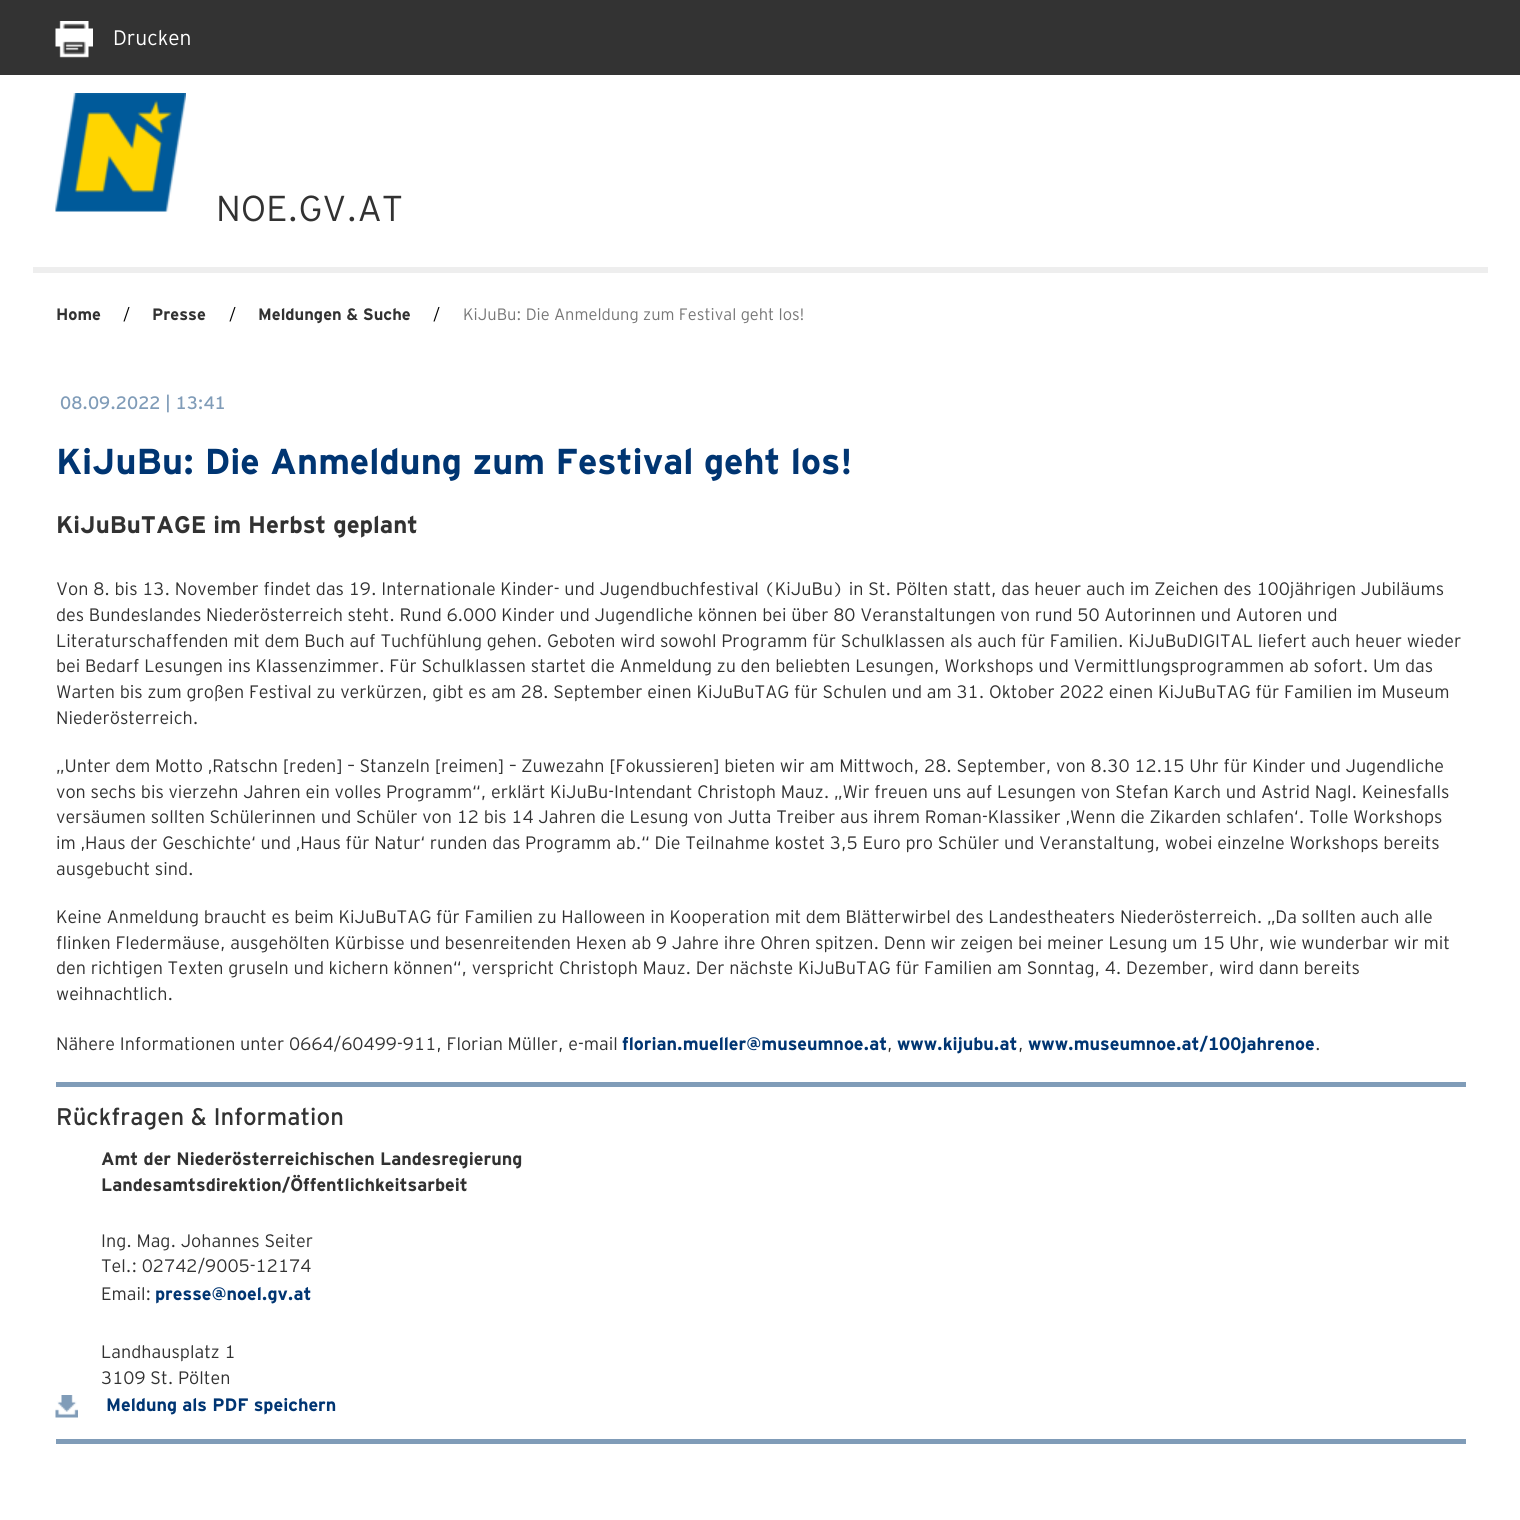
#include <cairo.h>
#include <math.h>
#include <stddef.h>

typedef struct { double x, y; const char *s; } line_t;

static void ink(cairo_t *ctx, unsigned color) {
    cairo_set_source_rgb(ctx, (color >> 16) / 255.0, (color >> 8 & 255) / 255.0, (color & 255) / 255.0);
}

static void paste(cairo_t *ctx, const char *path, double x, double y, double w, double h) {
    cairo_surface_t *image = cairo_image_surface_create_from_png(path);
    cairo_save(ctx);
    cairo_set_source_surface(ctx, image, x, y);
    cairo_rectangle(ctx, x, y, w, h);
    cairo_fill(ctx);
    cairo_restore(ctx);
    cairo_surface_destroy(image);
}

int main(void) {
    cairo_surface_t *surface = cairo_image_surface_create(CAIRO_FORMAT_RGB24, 1520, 1520);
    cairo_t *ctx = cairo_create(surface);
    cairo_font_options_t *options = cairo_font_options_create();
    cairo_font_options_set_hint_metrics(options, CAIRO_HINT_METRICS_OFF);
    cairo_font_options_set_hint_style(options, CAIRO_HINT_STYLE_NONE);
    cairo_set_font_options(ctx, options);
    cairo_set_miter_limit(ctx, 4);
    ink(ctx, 0xFFFFFF);
    cairo_paint(ctx);
    ink(ctx, 0x333333);
    cairo_rectangle(ctx, 0, 0, 1520, 75);
    cairo_fill(ctx);
    paste(ctx, "media/1.png", 55, 21, 38, 37);
    cairo_select_font_face(ctx, "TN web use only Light", CAIRO_FONT_SLANT_NORMAL, CAIRO_FONT_WEIGHT_NORMAL);
    cairo_set_font_size(ctx, 21);
    ink(ctx, 0xFFFFFF);
    cairo_move_to(ctx, 113, 45);
    cairo_show_text(ctx, "Drucken");
    ink(ctx, 0xEEEEEE);
    cairo_rectangle(ctx, 33, 267, 1455, 6);
    cairo_fill(ctx);
    paste(ctx, "media/2.png", 55, 93, 131, 119);
    cairo_set_font_size(ctx, 36);
    ink(ctx, 0x323232);
    cairo_move_to(ctx, 216, 221);
    cairo_show_text(ctx, "NOE.GV.AT");
    cairo_select_font_face(ctx, "TN web use only", CAIRO_FONT_SLANT_NORMAL, CAIRO_FONT_WEIGHT_BOLD);
    cairo_set_font_size(ctx, 16.5);
    cairo_move_to(ctx, 56, 320);
    cairo_show_text(ctx, "Home");
    cairo_select_font_face(ctx, "TN web use only Light", CAIRO_FONT_SLANT_NORMAL, CAIRO_FONT_WEIGHT_NORMAL);
    ink(ctx, 0x000000);
    cairo_move_to(ctx, 123, 320);
    cairo_show_text(ctx, "/");
    cairo_select_font_face(ctx, "TN web use only", CAIRO_FONT_SLANT_NORMAL, CAIRO_FONT_WEIGHT_BOLD);
    ink(ctx, 0x323232);
    cairo_move_to(ctx, 152, 320);
    cairo_show_text(ctx, "Presse");
    cairo_select_font_face(ctx, "TN web use only Light", CAIRO_FONT_SLANT_NORMAL, CAIRO_FONT_WEIGHT_NORMAL);
    ink(ctx, 0x000000);
    cairo_move_to(ctx, 229, 320);
    cairo_show_text(ctx, "/");
    cairo_select_font_face(ctx, "TN web use only", CAIRO_FONT_SLANT_NORMAL, CAIRO_FONT_WEIGHT_BOLD);
    ink(ctx, 0x323232);
    cairo_move_to(ctx, 258, 320);
    cairo_show_text(ctx, "Meldungen & Suche");
    cairo_select_font_face(ctx, "TN web use only Light", CAIRO_FONT_SLANT_NORMAL, CAIRO_FONT_WEIGHT_NORMAL);
    ink(ctx, 0x000000);
    cairo_move_to(ctx, 433, 320);
    cairo_show_text(ctx, "/");
    ink(ctx, 0x777777);
    cairo_move_to(ctx, 463, 320);
    cairo_show_text(ctx, "KiJuBu: Die Anmeldung zum Festival geht los!");
    cairo_select_font_face(ctx, "TN web use only", CAIRO_FONT_SLANT_NORMAL, CAIRO_FONT_WEIGHT_NORMAL);
    cairo_set_font_size(ctx, 18);
    ink(ctx, 0x809CB8);
    cairo_move_to(ctx, 60, 409);
    cairo_show_text(ctx, "08.09.2022 | 13:41");
    cairo_select_font_face(ctx, "TN web use only", CAIRO_FONT_SLANT_NORMAL, CAIRO_FONT_WEIGHT_BOLD);
    cairo_set_font_size(ctx, 36);
    ink(ctx, 0x003572);
    cairo_move_to(ctx, 56, 474);
    cairo_show_text(ctx, "KiJuBu: Die Anmeldung zum Festival geht los!");
    cairo_set_font_size(ctx, 24);
    ink(ctx, 0x323232);
    cairo_move_to(ctx, 56, 533);
    cairo_show_text(ctx, "KiJuBuTAGE im Herbst geplant");
    cairo_select_font_face(ctx, "TN web use only Light", CAIRO_FONT_SLANT_NORMAL, CAIRO_FONT_WEIGHT_NORMAL);
    cairo_set_font_size(ctx, 18);
    {
        static const line_t items[] = {
            {56, 595, "Von 8. bis 13. November findet das 19. Internationale Kinder- und Jugendbuchfestival (KiJuBu) in St. Pölten statt, das heuer auch im Zeichen des 100jährigen Jubiläums"},
            {56, 621, "des Bundeslandes Niederösterreich steht. Rund 6.000 Kinder und Jugendliche können bei über 80 Veranstaltungen von rund 50 Autorinnen und Autoren und"},
            {56, 647, "Literaturschaffenden mit dem Buch auf Tuchfühlung gehen. Geboten wird sowohl Programm für Schulklassen als auch für Familien. KiJuBuDIGITAL liefert auch heuer wieder"},
            {56, 672, "bei Bedarf Lesungen ins Klassenzimmer. Für Schulklassen startet die Anmeldung zu den beliebten Lesungen, Workshops und Vermittlungsprogrammen ab sofort. Um das"},
            {56, 698, "Warten bis zum großen Festival zu verkürzen, gibt es am 28. September einen KiJuBuTAG für Schulen und am 31. Oktober 2022 einen KiJuBuTAG für Familien im Museum"},
            {56, 724, "Niederösterreich."},
            {56, 772, "„Unter dem Motto ‚Ratschn [reden] – Stanzeln [reimen] – Zuwezahn [Fokussieren] bieten wir am Mittwoch, 28. September, von 8.30 12.15 Uhr für Kinder und Jugendliche"},
            {56, 798, "von sechs bis vierzehn Jahren ein volles Programm“, erklärt KiJuBu-Intendant Christoph Mauz. „Wir freuen uns auf Lesungen von Stefan Karch und Astrid Nagl. Keinesfalls"},
            {56, 823, "versäumen sollten Schülerinnen und Schüler von 12 bis 14 Jahren die Lesung von Jutta Treiber aus ihrem Roman-Klassiker ‚Wenn die Zikarden schlafen‘. Tolle Workshops"},
            {56, 849, "im ‚Haus der Geschichte‘ und ‚Haus für Natur‘ runden das Programm ab.“ Die Teilnahme kostet 3,5 Euro pro Schüler und Veranstaltung, wobei einzelne Workshops bereits"},
            {56, 875, "ausgebucht sind."},
            {56, 923, "Keine Anmeldung braucht es beim KiJuBuTAG für Familien zu Halloween in Kooperation mit dem Blätterwirbel des Landestheaters Niederösterreich. „Da sollten auch alle"},
            {56, 949, "flinken Fledermäuse, ausgehölten Kürbisse und besenreitenden Hexen ab 9 Jahre ihre Ohren spitzen. Denn wir zeigen bei meiner Lesung um 15 Uhr, wie wunderbar wir mit"},
            {56, 974, "den richtigen Texten gruseln und kichern können“, verspricht Christoph Mauz. Der nächste KiJuBuTAG für Familien am Sonntag, 4. Dezember, wird dann bereits"},
            {56, 1000, "weihnachtlich."},
            {56, 1050, "Nähere Informationen unter 0664/60499-911, Florian Müller, e-mail"},
        };
        for (size_t i = 0; i < sizeof items / sizeof *items; i++) {
            cairo_move_to(ctx, items[i].x, items[i].y);
            cairo_show_text(ctx, items[i].s);
        }
    }
    cairo_select_font_face(ctx, "TN web use only", CAIRO_FONT_SLANT_NORMAL, CAIRO_FONT_WEIGHT_BOLD);
    ink(ctx, 0x003572);
    cairo_move_to(ctx, 622, 1050);
    cairo_show_text(ctx, "florian.mueller@museumnoe.at");
    cairo_select_font_face(ctx, "TN web use only Light", CAIRO_FONT_SLANT_NORMAL, CAIRO_FONT_WEIGHT_NORMAL);
    ink(ctx, 0x323232);
    cairo_move_to(ctx, 887, 1050);
    cairo_show_text(ctx, ",");
    cairo_select_font_face(ctx, "TN web use only", CAIRO_FONT_SLANT_NORMAL, CAIRO_FONT_WEIGHT_BOLD);
    ink(ctx, 0x003572);
    cairo_move_to(ctx, 897, 1050);
    cairo_show_text(ctx, "www.kijubu.at");
    cairo_select_font_face(ctx, "TN web use only Light", CAIRO_FONT_SLANT_NORMAL, CAIRO_FONT_WEIGHT_NORMAL);
    ink(ctx, 0x323232);
    cairo_move_to(ctx, 1018, 1050);
    cairo_show_text(ctx, ",");
    cairo_select_font_face(ctx, "TN web use only", CAIRO_FONT_SLANT_NORMAL, CAIRO_FONT_WEIGHT_BOLD);
    ink(ctx, 0x003572);
    cairo_move_to(ctx, 1028, 1050);
    cairo_show_text(ctx, "www.museumnoe.at/100jahrenoe");
    cairo_select_font_face(ctx, "TN web use only Light", CAIRO_FONT_SLANT_NORMAL, CAIRO_FONT_WEIGHT_NORMAL);
    ink(ctx, 0x323232);
    cairo_move_to(ctx, 1315, 1050);
    cairo_show_text(ctx, ".");
    ink(ctx, 0x809CB8);
    cairo_rectangle(ctx, 56, 1082, 1410, 5);
    cairo_fill(ctx);
    cairo_select_font_face(ctx, "TN web use only", CAIRO_FONT_SLANT_NORMAL, CAIRO_FONT_WEIGHT_NORMAL);
    cairo_set_font_size(ctx, 24);
    ink(ctx, 0x323232);
    cairo_move_to(ctx, 56, 1125);
    cairo_show_text(ctx, "Rückfragen & Information");
    cairo_select_font_face(ctx, "TN web use only", CAIRO_FONT_SLANT_NORMAL, CAIRO_FONT_WEIGHT_BOLD);
    cairo_set_font_size(ctx, 18);
    cairo_move_to(ctx, 101, 1165);
    cairo_show_text(ctx, "Amt der Niederösterreichischen Landesregierung");
    cairo_move_to(ctx, 101, 1191);
    cairo_show_text(ctx, "Landesamtsdirektion/Öffentlichkeitsarbeit");
    cairo_select_font_face(ctx, "TN web use only Light", CAIRO_FONT_SLANT_NORMAL, CAIRO_FONT_WEIGHT_NORMAL);
    {
        static const line_t items[] = {
            {101, 1247, "Ing. Mag. Johannes Seiter"},
            {101, 1272, "Tel.: 02742/9005-12174"},
            {101, 1300, "Email:"},
        };
        for (size_t i = 0; i < sizeof items / sizeof *items; i++) {
            cairo_move_to(ctx, items[i].x, items[i].y);
            cairo_show_text(ctx, items[i].s);
        }
    }
    cairo_select_font_face(ctx, "TN web use only", CAIRO_FONT_SLANT_NORMAL, CAIRO_FONT_WEIGHT_BOLD);
    ink(ctx, 0x003572);
    cairo_move_to(ctx, 155, 1300);
    cairo_show_text(ctx, "presse@noel.gv.at");
    cairo_select_font_face(ctx, "TN web use only Light", CAIRO_FONT_SLANT_NORMAL, CAIRO_FONT_WEIGHT_NORMAL);
    ink(ctx, 0x323232);
    cairo_move_to(ctx, 101, 1358);
    cairo_show_text(ctx, "Landhausplatz 1");
    cairo_move_to(ctx, 101, 1384);
    cairo_show_text(ctx, "3109 St. Pölten");
    paste(ctx, "media/3.png", 55, 1395, 23, 23);
    cairo_select_font_face(ctx, "TN web use only", CAIRO_FONT_SLANT_NORMAL, CAIRO_FONT_WEIGHT_BOLD);
    ink(ctx, 0x003572);
    cairo_move_to(ctx, 106, 1411);
    cairo_show_text(ctx, "Meldung als PDF speichern");
    ink(ctx, 0x809CB8);
    cairo_rectangle(ctx, 56, 1439, 1410, 5);
    cairo_fill(ctx);
    cairo_surface_write_to_png(surface, "image.png");
    cairo_font_options_destroy(options);
    cairo_destroy(ctx);
    cairo_surface_destroy(surface);
    return 0;
}
